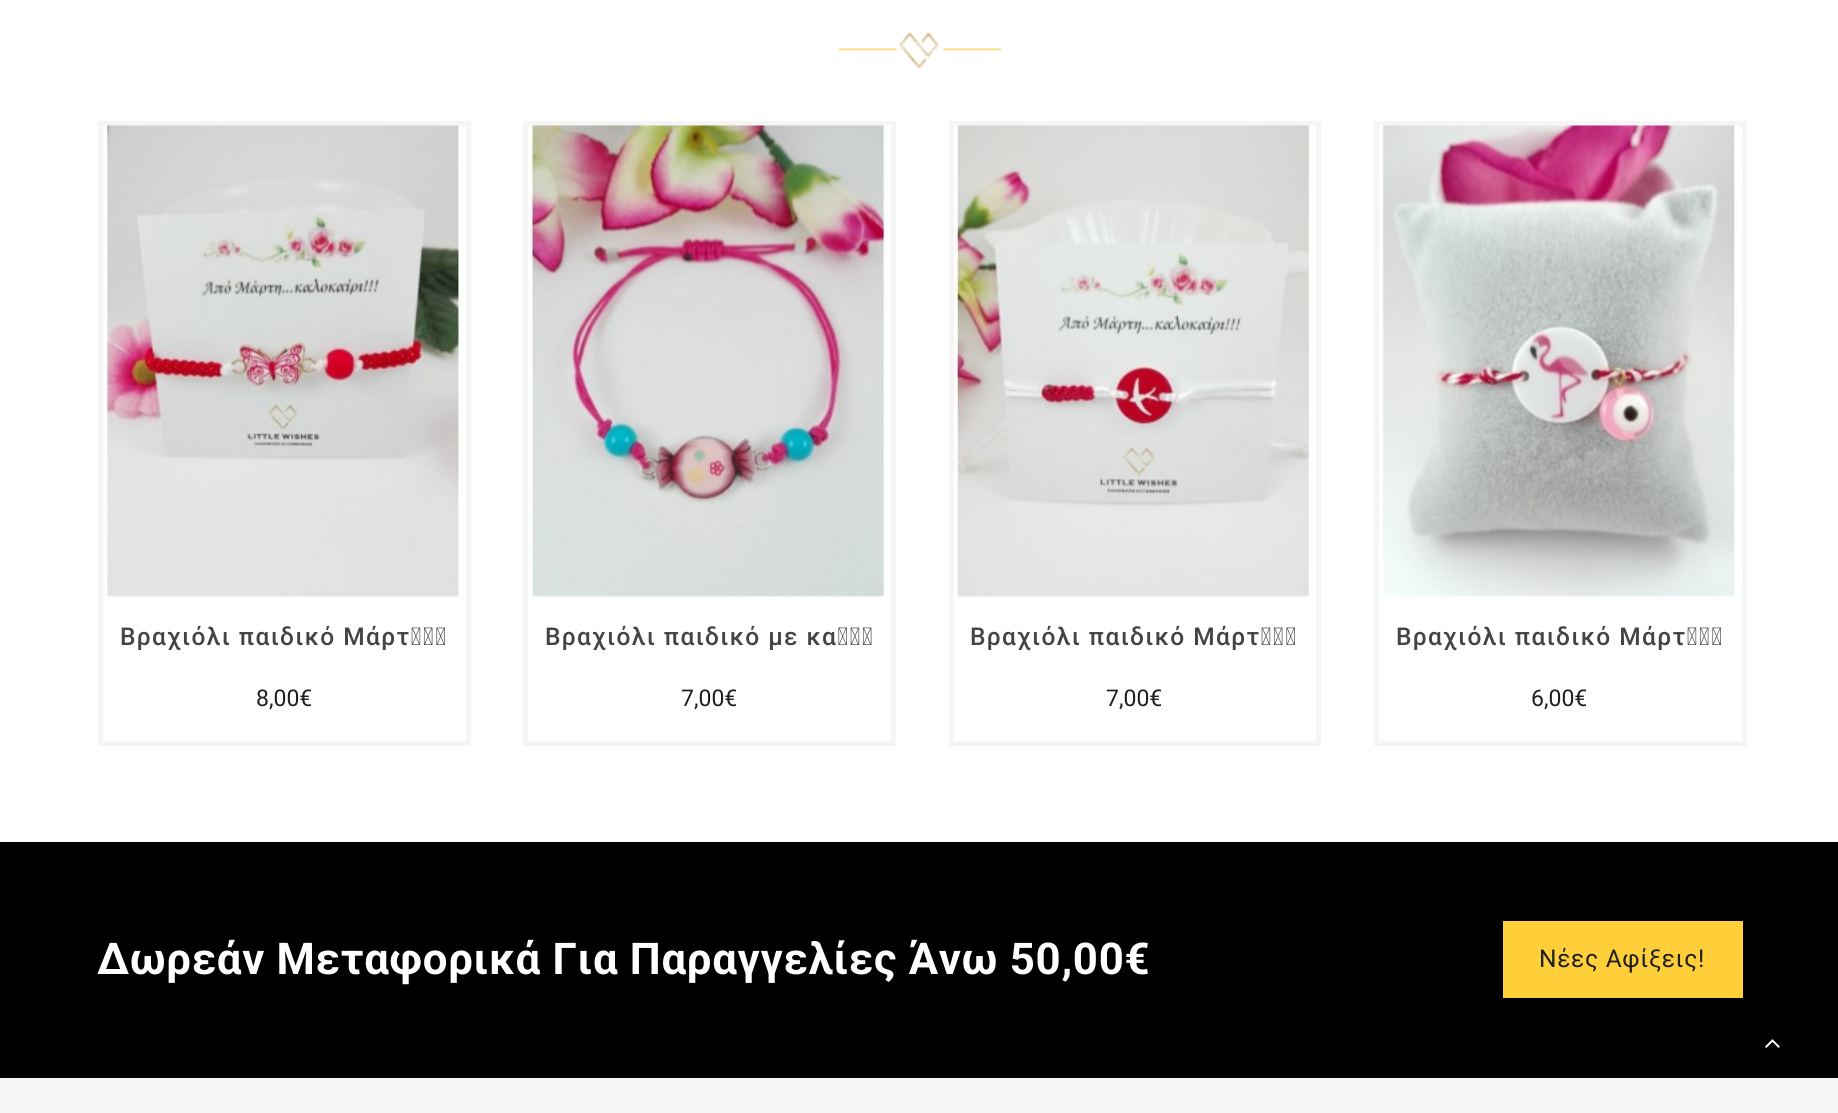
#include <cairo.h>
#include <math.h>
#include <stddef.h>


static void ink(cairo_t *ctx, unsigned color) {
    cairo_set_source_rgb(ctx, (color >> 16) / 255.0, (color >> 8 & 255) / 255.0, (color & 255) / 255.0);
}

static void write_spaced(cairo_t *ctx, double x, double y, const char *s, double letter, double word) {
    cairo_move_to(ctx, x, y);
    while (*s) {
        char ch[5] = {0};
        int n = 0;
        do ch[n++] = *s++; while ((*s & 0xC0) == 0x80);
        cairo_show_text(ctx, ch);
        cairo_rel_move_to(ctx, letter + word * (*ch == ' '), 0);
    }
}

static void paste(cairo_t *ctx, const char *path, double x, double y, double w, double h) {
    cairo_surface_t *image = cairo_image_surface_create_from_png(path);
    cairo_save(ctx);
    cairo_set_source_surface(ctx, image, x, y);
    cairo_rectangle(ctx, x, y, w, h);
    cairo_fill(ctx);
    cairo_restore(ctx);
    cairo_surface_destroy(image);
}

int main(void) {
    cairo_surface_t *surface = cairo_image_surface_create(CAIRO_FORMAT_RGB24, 1838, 1113);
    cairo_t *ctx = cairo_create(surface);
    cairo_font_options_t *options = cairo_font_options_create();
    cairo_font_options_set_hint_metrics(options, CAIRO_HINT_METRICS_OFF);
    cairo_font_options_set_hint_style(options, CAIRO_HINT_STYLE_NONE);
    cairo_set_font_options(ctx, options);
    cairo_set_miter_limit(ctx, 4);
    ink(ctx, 0xFFFFFF);
    cairo_paint(ctx);
    paste(ctx, "media/1.png", 837, 32, 165, 36);
    cairo_rectangle(ctx, 100.5, 123.5, 368, 620);
    ink(ctx, 0xF5F5F5);
    cairo_set_line_width(ctx, 5);
    cairo_stroke(ctx);
    paste(ctx, "media/2.png", 104, 125, 360, 472);
    cairo_select_font_face(ctx, "Roboto Medium", CAIRO_FONT_SLANT_NORMAL, CAIRO_FONT_WEIGHT_NORMAL);
    cairo_set_font_size(ctx, 24.5);
    ink(ctx, 0x444444);
    write_spaced(ctx, 120, 645, "Βραχιόλι παιδικό Μάρτ...", 1.4, 0);
    cairo_select_font_face(ctx, "Roboto", CAIRO_FONT_SLANT_NORMAL, CAIRO_FONT_WEIGHT_NORMAL);
    cairo_set_font_size(ctx, 23);
    ink(ctx, 0x1F1F1F);
    cairo_move_to(ctx, 256, 706);
    cairo_show_text(ctx, "8,00€");
    cairo_rectangle(ctx, 525.5, 123.5, 368, 620);
    ink(ctx, 0xF5F5F5);
    cairo_stroke(ctx);
    paste(ctx, "media/3.png", 528, 125, 361, 472);
    cairo_select_font_face(ctx, "Roboto Medium", CAIRO_FONT_SLANT_NORMAL, CAIRO_FONT_WEIGHT_NORMAL);
    cairo_set_font_size(ctx, 24.5);
    ink(ctx, 0x444444);
    write_spaced(ctx, 545, 645, "Βραχιόλι παιδικό με κα...", 1.4, 0);
    cairo_select_font_face(ctx, "Roboto", CAIRO_FONT_SLANT_NORMAL, CAIRO_FONT_WEIGHT_NORMAL);
    cairo_set_font_size(ctx, 23);
    ink(ctx, 0x1F1F1F);
    cairo_move_to(ctx, 681, 706);
    cairo_show_text(ctx, "7,00€");
    cairo_rectangle(ctx, 951.5, 123.5, 367, 620);
    ink(ctx, 0xF5F5F5);
    cairo_stroke(ctx);
    paste(ctx, "media/4.png", 954, 125, 360, 472);
    cairo_select_font_face(ctx, "Roboto Medium", CAIRO_FONT_SLANT_NORMAL, CAIRO_FONT_WEIGHT_NORMAL);
    cairo_set_font_size(ctx, 24.5);
    ink(ctx, 0x444444);
    write_spaced(ctx, 970, 645, "Βραχιόλι παιδικό Μάρτ...", 1.4, 0);
    cairo_select_font_face(ctx, "Roboto", CAIRO_FONT_SLANT_NORMAL, CAIRO_FONT_WEIGHT_NORMAL);
    cairo_set_font_size(ctx, 23);
    ink(ctx, 0x1F1F1F);
    cairo_move_to(ctx, 1106, 706);
    cairo_show_text(ctx, "7,00€");
    cairo_rectangle(ctx, 1376.5, 123.5, 368, 620);
    ink(ctx, 0xF5F5F5);
    cairo_stroke(ctx);
    paste(ctx, "media/5.png", 1379, 125, 360, 472);
    cairo_select_font_face(ctx, "Roboto Medium", CAIRO_FONT_SLANT_NORMAL, CAIRO_FONT_WEIGHT_NORMAL);
    cairo_set_font_size(ctx, 24.5);
    ink(ctx, 0x444444);
    write_spaced(ctx, 1396, 645, "Βραχιόλι παιδικό Μάρτ...", 1.4, 0);
    cairo_select_font_face(ctx, "Roboto", CAIRO_FONT_SLANT_NORMAL, CAIRO_FONT_WEIGHT_NORMAL);
    cairo_set_font_size(ctx, 23);
    ink(ctx, 0x1F1F1F);
    cairo_move_to(ctx, 1531, 706);
    cairo_show_text(ctx, "6,00€");
    ink(ctx, 0x000000);
    cairo_rectangle(ctx, 0, 842, 1838, 236);
    cairo_fill(ctx);
    cairo_select_font_face(ctx, "Roboto", CAIRO_FONT_SLANT_NORMAL, CAIRO_FONT_WEIGHT_BOLD);
    cairo_set_font_size(ctx, 43.75);
    ink(ctx, 0xFFFFFF);
    write_spaced(ctx, 97, 974, "Δωρεάν Μεταφορικά Για Παραγγελίες Άνω 50,00€", 0.7, 0);
    ink(ctx, 0xFECF39);
    cairo_rectangle(ctx, 1503, 921, 240, 77);
    cairo_fill(ctx);
    cairo_select_font_face(ctx, "Roboto", CAIRO_FONT_SLANT_NORMAL, CAIRO_FONT_WEIGHT_NORMAL);
    cairo_set_font_size(ctx, 24.5);
    ink(ctx, 0x1F1F1F);
    write_spaced(ctx, 1539, 967, "Νέες Αφίξεις!", 0.7, 0);
    paste(ctx, "media/6.png", 1765, 1039, 15, 9);
    ink(ctx, 0xF5F5F5);
    cairo_rectangle(ctx, 0, 1078, 1838, 35);
    cairo_fill(ctx);
    cairo_surface_write_to_png(surface, "image.png");
    cairo_font_options_destroy(options);
    cairo_destroy(ctx);
    cairo_surface_destroy(surface);
    return 0;
}
